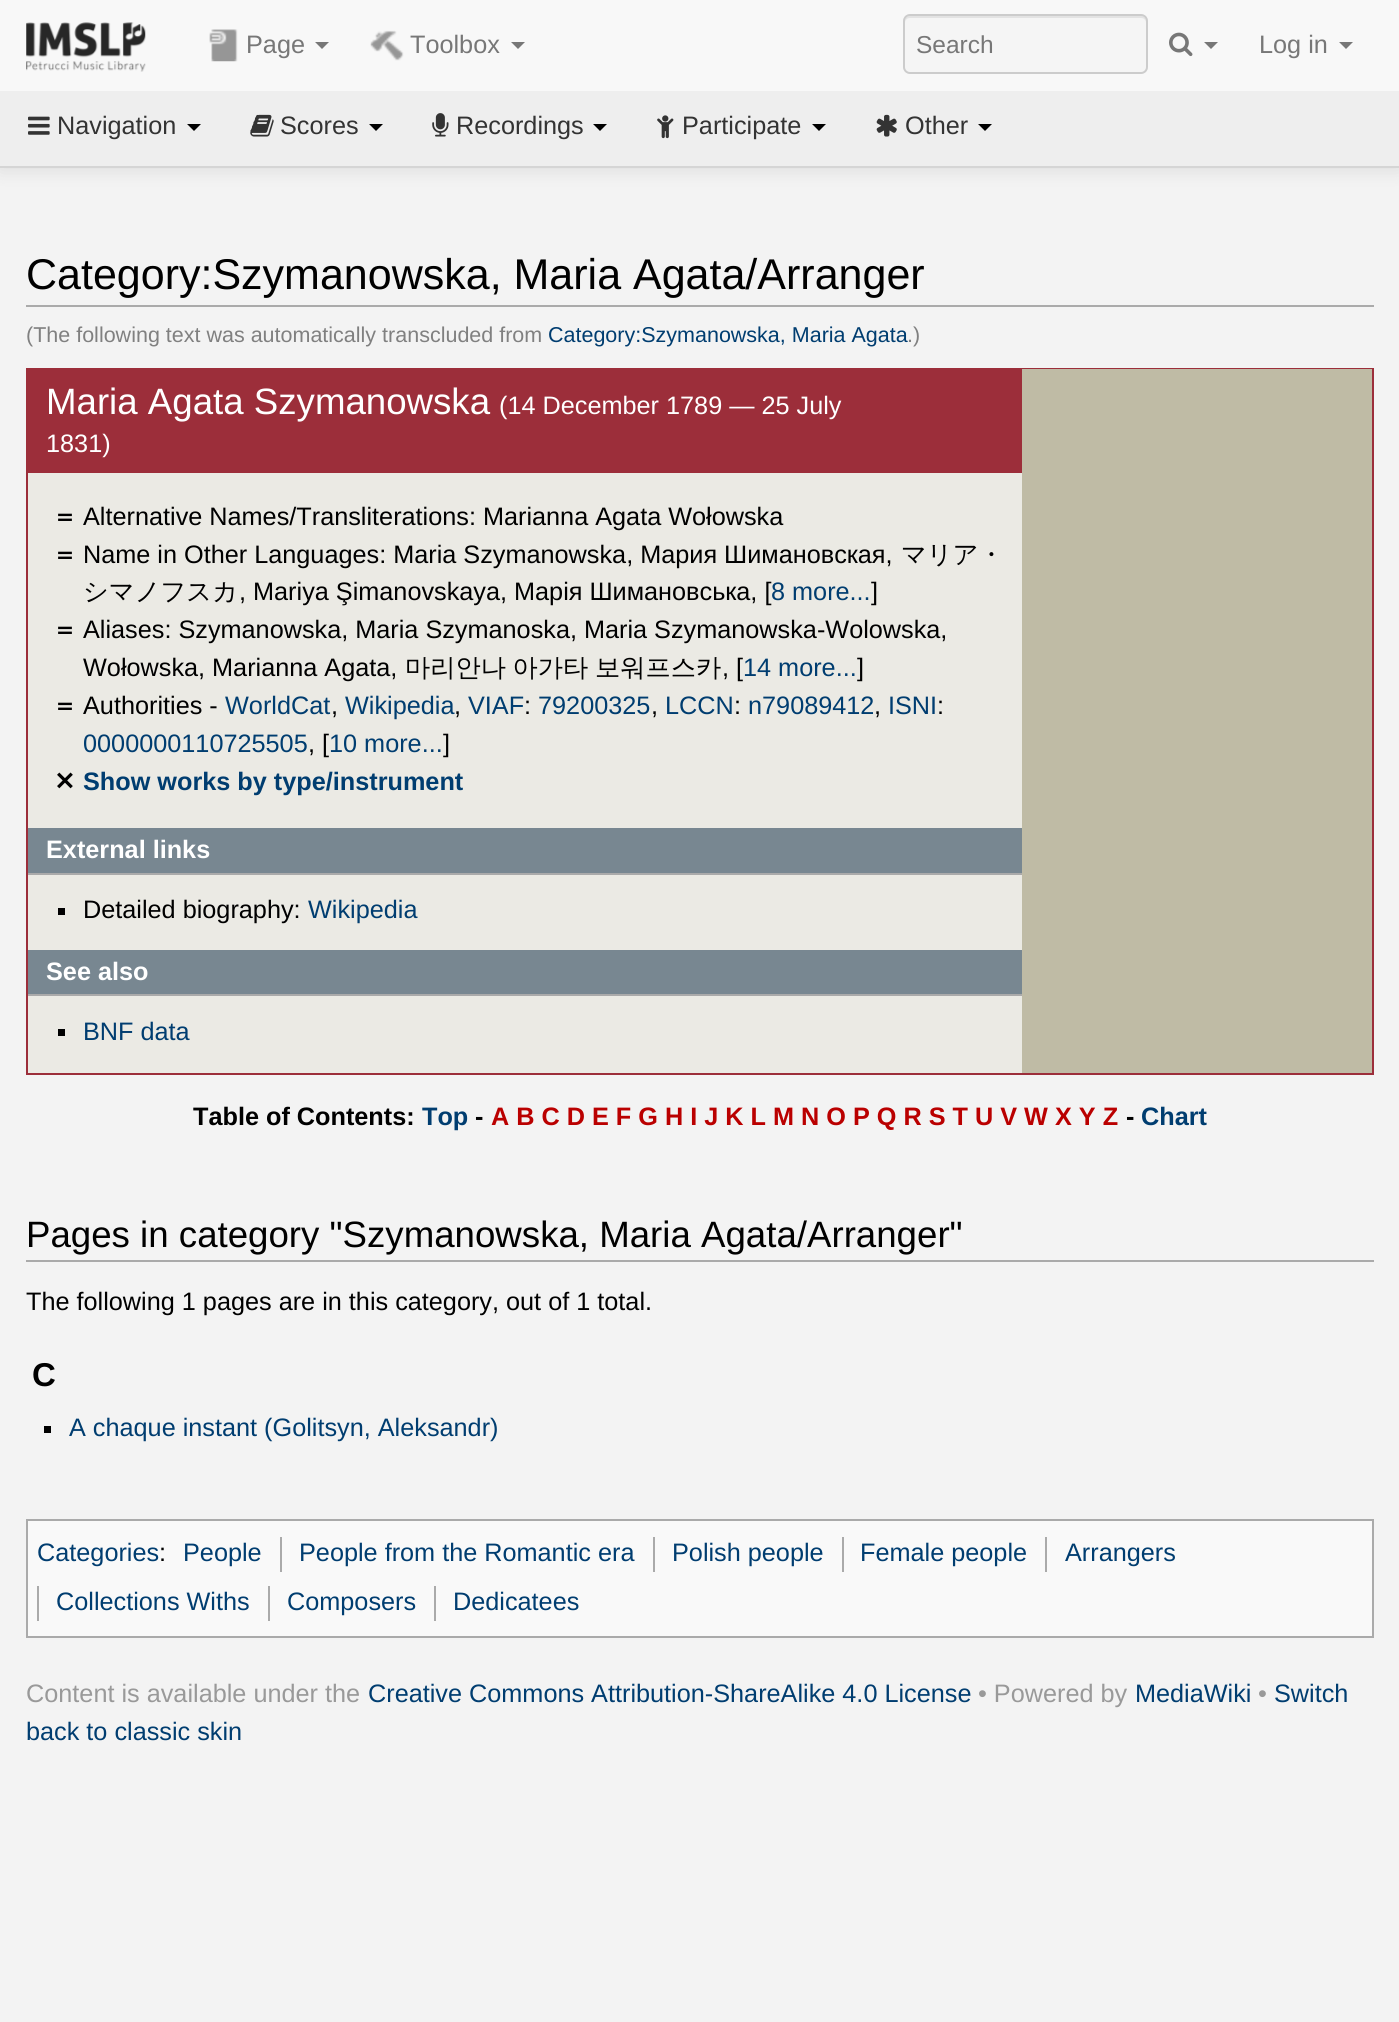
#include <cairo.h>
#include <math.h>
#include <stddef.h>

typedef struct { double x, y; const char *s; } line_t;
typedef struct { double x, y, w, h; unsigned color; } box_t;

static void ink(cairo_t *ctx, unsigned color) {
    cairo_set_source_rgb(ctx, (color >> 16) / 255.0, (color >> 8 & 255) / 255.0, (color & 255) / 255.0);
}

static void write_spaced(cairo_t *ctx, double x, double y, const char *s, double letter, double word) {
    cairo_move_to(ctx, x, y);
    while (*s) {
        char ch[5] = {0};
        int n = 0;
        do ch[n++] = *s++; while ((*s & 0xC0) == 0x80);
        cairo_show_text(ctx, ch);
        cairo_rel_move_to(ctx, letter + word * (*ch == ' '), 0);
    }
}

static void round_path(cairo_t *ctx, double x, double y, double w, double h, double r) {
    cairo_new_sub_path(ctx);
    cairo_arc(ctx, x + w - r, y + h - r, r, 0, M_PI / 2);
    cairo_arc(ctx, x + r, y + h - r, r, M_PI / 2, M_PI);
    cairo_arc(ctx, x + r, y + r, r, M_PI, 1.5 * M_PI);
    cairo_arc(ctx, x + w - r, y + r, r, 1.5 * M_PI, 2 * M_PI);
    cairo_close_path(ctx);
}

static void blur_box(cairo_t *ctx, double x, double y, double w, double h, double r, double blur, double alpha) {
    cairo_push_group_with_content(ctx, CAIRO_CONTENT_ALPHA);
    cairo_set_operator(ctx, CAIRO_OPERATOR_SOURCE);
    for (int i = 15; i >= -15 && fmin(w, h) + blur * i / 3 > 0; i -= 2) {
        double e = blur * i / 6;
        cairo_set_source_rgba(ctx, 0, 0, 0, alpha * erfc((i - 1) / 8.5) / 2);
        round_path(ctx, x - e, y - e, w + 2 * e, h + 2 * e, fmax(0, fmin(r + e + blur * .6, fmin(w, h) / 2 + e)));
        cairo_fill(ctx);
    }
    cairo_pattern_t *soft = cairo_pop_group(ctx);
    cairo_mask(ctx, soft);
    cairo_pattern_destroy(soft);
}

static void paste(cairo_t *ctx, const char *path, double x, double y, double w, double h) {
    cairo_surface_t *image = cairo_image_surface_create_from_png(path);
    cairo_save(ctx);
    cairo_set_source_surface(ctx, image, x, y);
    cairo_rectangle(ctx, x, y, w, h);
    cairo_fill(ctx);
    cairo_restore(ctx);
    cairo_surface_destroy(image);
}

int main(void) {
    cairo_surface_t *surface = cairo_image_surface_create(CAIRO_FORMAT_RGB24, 1399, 2022);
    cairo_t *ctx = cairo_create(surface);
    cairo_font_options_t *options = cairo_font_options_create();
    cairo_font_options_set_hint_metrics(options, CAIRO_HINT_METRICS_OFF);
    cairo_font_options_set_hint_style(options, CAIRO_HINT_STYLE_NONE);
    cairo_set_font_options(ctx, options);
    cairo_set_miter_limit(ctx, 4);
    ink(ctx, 0xF3F3F3);
    cairo_paint(ctx);
    ink(ctx, 0x000000);
    blur_box(ctx, 0, 93, 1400, 77, 0, 9, 0.1);
    ink(ctx, 0xF8F8F8);
    cairo_rectangle(ctx, 0, 0, 1399, 91);
    cairo_fill(ctx);
    paste(ctx, "media/1.png", 26, 22, 120, 50);
    paste(ctx, "media/2.png", 209, 29, 29, 33);
    cairo_select_font_face(ctx, "Liberation Sans", CAIRO_FONT_SLANT_NORMAL, CAIRO_FONT_WEIGHT_NORMAL);
    cairo_set_font_size(ctx, 25.25);
    ink(ctx, 0x777777);
    cairo_move_to(ctx, 246, 53);
    cairo_show_text(ctx, "Page");
    cairo_new_path(ctx);
    cairo_move_to(ctx, 315, 42);
    cairo_line_to(ctx, 329, 42);
    cairo_line_to(ctx, 322, 49);
    cairo_close_path(ctx);
    cairo_fill(ctx);
    paste(ctx, "media/3.png", 370, 30, 34, 31);
    cairo_move_to(ctx, 410, 53);
    cairo_show_text(ctx, "Toolbox");
    cairo_new_path(ctx);
    cairo_move_to(ctx, 511, 42);
    cairo_line_to(ctx, 525, 42);
    cairo_line_to(ctx, 518, 49);
    cairo_close_path(ctx);
    cairo_fill(ctx);
    ink(ctx, 0xF5F5F5);
    round_path(ctx, 903, 14, 245, 60, 7);
    cairo_fill(ctx);
    ink(ctx, 0xE3E3E3);
    cairo_new_path(ctx);
    cairo_move_to(ctx, 910, 18);
    cairo_line_to(ctx, 1141, 18);
    cairo_curve_to(ctx, 1144, 18, 1146, 20, 1146, 23);
    cairo_curve_to(ctx, 1146, 20, 1146, 17, 1142, 16);
    cairo_line_to(ctx, 909, 16);
    cairo_curve_to(ctx, 905, 17, 905, 20, 905, 23);
    cairo_curve_to(ctx, 905, 20, 907, 18, 910, 18);
    cairo_close_path(ctx);
    cairo_fill(ctx);
    round_path(ctx, 904, 15, 243, 58, 6);
    ink(ctx, 0xCCCCCC);
    cairo_stroke(ctx);
    cairo_set_font_size(ctx, 24.5);
    ink(ctx, 0x777777);
    cairo_move_to(ctx, 916, 53);
    cairo_show_text(ctx, "Search");
    paste(ctx, "media/4.png", 1169, 32, 24, 25);
    cairo_new_path(ctx);
    cairo_move_to(ctx, 1204, 42);
    cairo_line_to(ctx, 1218, 42);
    cairo_line_to(ctx, 1211, 49);
    cairo_close_path(ctx);
    cairo_fill(ctx);
    cairo_set_font_size(ctx, 25.25);
    cairo_move_to(ctx, 1259, 53);
    cairo_show_text(ctx, "Log in");
    cairo_new_path(ctx);
    cairo_move_to(ctx, 1339, 42);
    cairo_line_to(ctx, 1353, 42);
    cairo_line_to(ctx, 1346, 49);
    cairo_close_path(ctx);
    cairo_fill(ctx);
    ink(ctx, 0xEEEEEE);
    cairo_rectangle(ctx, 0, 91, 1399, 75);
    cairo_fill(ctx);
    ink(ctx, 0xD5D5D5);
    cairo_rectangle(ctx, 0, 166, 1399, 2);
    cairo_fill(ctx);
    paste(ctx, "media/5.png", 28, 116, 22, 19);
    ink(ctx, 0x333333);
    cairo_move_to(ctx, 57, 134);
    cairo_show_text(ctx, "Navigation");
    ink(ctx, 0x000000);
    cairo_new_path(ctx);
    cairo_move_to(ctx, 187, 124);
    cairo_line_to(ctx, 201, 124);
    cairo_line_to(ctx, 194, 131);
    cairo_close_path(ctx);
    cairo_fill(ctx);
    paste(ctx, "media/6.png", 250, 114, 24, 23);
    ink(ctx, 0x333333);
    cairo_move_to(ctx, 280, 134);
    cairo_show_text(ctx, "Scores");
    ink(ctx, 0x000000);
    cairo_new_path(ctx);
    cairo_move_to(ctx, 369, 124);
    cairo_line_to(ctx, 383, 124);
    cairo_line_to(ctx, 376, 131);
    cairo_close_path(ctx);
    cairo_fill(ctx);
    paste(ctx, "media/7.png", 432, 113, 17, 24);
    ink(ctx, 0x333333);
    cairo_move_to(ctx, 456, 134);
    cairo_show_text(ctx, "Recordings");
    ink(ctx, 0x000000);
    cairo_new_path(ctx);
    cairo_move_to(ctx, 593, 124);
    cairo_line_to(ctx, 607, 124);
    cairo_line_to(ctx, 600, 131);
    cairo_close_path(ctx);
    cairo_fill(ctx);
    paste(ctx, "media/8.png", 657, 115, 17, 24);
    ink(ctx, 0x333333);
    cairo_move_to(ctx, 682, 134);
    cairo_show_text(ctx, "Participate");
    ink(ctx, 0x000000);
    cairo_new_path(ctx);
    cairo_move_to(ctx, 812, 124);
    cairo_line_to(ctx, 826, 124);
    cairo_line_to(ctx, 819, 131);
    cairo_close_path(ctx);
    cairo_fill(ctx);
    paste(ctx, "media/9.png", 876, 114, 21, 23);
    ink(ctx, 0x333333);
    cairo_move_to(ctx, 905, 134);
    cairo_show_text(ctx, "Other");
    ink(ctx, 0x000000);
    cairo_new_path(ctx);
    cairo_move_to(ctx, 978, 124);
    cairo_line_to(ctx, 992, 124);
    cairo_line_to(ctx, 985, 131);
    cairo_close_path(ctx);
    cairo_fill(ctx);
    ink(ctx, 0xAAAAAA);
    cairo_rectangle(ctx, 26, 305, 1348, 2);
    cairo_fill(ctx);
    cairo_set_font_size(ctx, 43);
    ink(ctx, 0x000000);
    cairo_move_to(ctx, 26, 289);
    cairo_show_text(ctx, "Category:Szymanowska, Maria Agata/Arranger");
    cairo_set_font_size(ctx, 21.5);
    ink(ctx, 0x808080);
    cairo_move_to(ctx, 26, 342);
    cairo_show_text(ctx, "(The following text was automatically transcluded from");
    ink(ctx, 0x003D70);
    cairo_move_to(ctx, 548, 342);
    cairo_show_text(ctx, "Category:Szymanowska, Maria Agata");
    ink(ctx, 0x808080);
    cairo_move_to(ctx, 907, 342);
    cairo_show_text(ctx, ".)");
    cairo_rectangle(ctx, 27, 369, 1346, 705);
    ink(ctx, 0x9C2E3A);
    cairo_stroke(ctx);
    {
        static const box_t items[] = {
            {28, 473, 994, 600, 0xEBEAE4},
            {1022, 369, 350, 704, 0xBFBBA5},
            {28, 370, 994, 103, 0x9C2E3A},
        };
        for (size_t i = 0; i < sizeof items / sizeof *items; i++) {
            ink(ctx, items[i].color);
            cairo_rectangle(ctx, items[i].x, items[i].y, items[i].w, items[i].h);
            cairo_fill(ctx);
        }
    }
    cairo_set_font_size(ctx, 36.65);
    ink(ctx, 0xFFFFFF);
    cairo_move_to(ctx, 46, 414);
    cairo_show_text(ctx, "Maria Agata Szymanowska");
    cairo_set_font_size(ctx, 25.25);
    cairo_move_to(ctx, 499, 414);
    cairo_show_text(ctx, "(14 December 1789 — 25 July");
    cairo_move_to(ctx, 46, 452);
    cairo_show_text(ctx, "1831)");
    cairo_select_font_face(ctx, "WenQuanYi Zen Hei", CAIRO_FONT_SLANT_NORMAL, CAIRO_FONT_WEIGHT_BOLD);
    ink(ctx, 0x000000);
    cairo_move_to(ctx, 52, 525);
    cairo_show_text(ctx, "＝");
    cairo_select_font_face(ctx, "Liberation Sans", CAIRO_FONT_SLANT_NORMAL, CAIRO_FONT_WEIGHT_NORMAL);
    cairo_move_to(ctx, 83, 525);
    cairo_show_text(ctx, "Alternative Names/Transliterations: Marianna Agata Wołowska");
    cairo_select_font_face(ctx, "WenQuanYi Zen Hei", CAIRO_FONT_SLANT_NORMAL, CAIRO_FONT_WEIGHT_BOLD);
    cairo_move_to(ctx, 52, 563);
    cairo_show_text(ctx, "＝");
    cairo_select_font_face(ctx, "Liberation Sans", CAIRO_FONT_SLANT_NORMAL, CAIRO_FONT_WEIGHT_NORMAL);
    cairo_move_to(ctx, 83, 563);
    cairo_show_text(ctx, "Name in Other Languages: Maria Szymanowska, Мария Шимановская,");
    cairo_select_font_face(ctx, "WenQuanYi Zen Hei Medium", CAIRO_FONT_SLANT_NORMAL, CAIRO_FONT_WEIGHT_NORMAL);
    cairo_move_to(ctx, 901, 563);
    cairo_show_text(ctx, "マリア・");
    cairo_move_to(ctx, 83, 600);
    cairo_show_text(ctx, "シマノフスカ");
    cairo_select_font_face(ctx, "Liberation Sans", CAIRO_FONT_SLANT_NORMAL, CAIRO_FONT_WEIGHT_NORMAL);
    cairo_move_to(ctx, 239, 600);
    cairo_show_text(ctx, ", Mariya Şimanovskaya, Марія Шимановська, [");
    ink(ctx, 0x003D70);
    cairo_move_to(ctx, 771, 600);
    cairo_show_text(ctx, "8 more...");
    ink(ctx, 0x000000);
    cairo_move_to(ctx, 871, 600);
    cairo_show_text(ctx, "]");
    cairo_select_font_face(ctx, "WenQuanYi Zen Hei", CAIRO_FONT_SLANT_NORMAL, CAIRO_FONT_WEIGHT_BOLD);
    cairo_move_to(ctx, 52, 638);
    cairo_show_text(ctx, "＝");
    cairo_select_font_face(ctx, "Liberation Sans", CAIRO_FONT_SLANT_NORMAL, CAIRO_FONT_WEIGHT_NORMAL);
    cairo_move_to(ctx, 83, 638);
    cairo_show_text(ctx, "Aliases: Szymanowska, Maria Szymanoska, Maria Szymanowska-Wolowska,");
    cairo_move_to(ctx, 83, 676);
    cairo_show_text(ctx, "Wołowska, Marianna Agata,");
    cairo_select_font_face(ctx, "WenQuanYi Zen Hei Medium", CAIRO_FONT_SLANT_NORMAL, CAIRO_FONT_WEIGHT_NORMAL);
    write_spaced(ctx, 405, 676, "마리안나 아가타 보워프스카", 0, -1);
    cairo_select_font_face(ctx, "Liberation Sans", CAIRO_FONT_SLANT_NORMAL, CAIRO_FONT_WEIGHT_NORMAL);
    cairo_move_to(ctx, 722, 676);
    cairo_show_text(ctx, ", [");
    ink(ctx, 0x003D70);
    cairo_move_to(ctx, 743, 676);
    cairo_show_text(ctx, "14 more...");
    ink(ctx, 0x000000);
    cairo_move_to(ctx, 857, 676);
    cairo_show_text(ctx, "]");
    cairo_select_font_face(ctx, "WenQuanYi Zen Hei", CAIRO_FONT_SLANT_NORMAL, CAIRO_FONT_WEIGHT_BOLD);
    cairo_move_to(ctx, 52, 714);
    cairo_show_text(ctx, "＝");
    cairo_select_font_face(ctx, "Liberation Sans", CAIRO_FONT_SLANT_NORMAL, CAIRO_FONT_WEIGHT_NORMAL);
    cairo_move_to(ctx, 83, 714);
    cairo_show_text(ctx, "Authorities -");
    ink(ctx, 0x003D70);
    {
        static const line_t items[] = {
            {225, 714, "WorldCat"},
            {345, 714, "Wikipedia"},
            {468, 714, "VIAF"},
        };
        for (size_t i = 0; i < sizeof items / sizeof *items; i++) {
            cairo_move_to(ctx, items[i].x, items[i].y);
            cairo_show_text(ctx, items[i].s);
        }
    }
    ink(ctx, 0x000000);
    cairo_move_to(ctx, 524, 714);
    cairo_show_text(ctx, ":");
    ink(ctx, 0x003D70);
    cairo_move_to(ctx, 538, 714);
    cairo_show_text(ctx, "79200325");
    cairo_move_to(ctx, 665, 714);
    cairo_show_text(ctx, "LCCN");
    ink(ctx, 0x000000);
    cairo_move_to(ctx, 734, 714);
    cairo_show_text(ctx, ":");
    ink(ctx, 0x003D70);
    cairo_move_to(ctx, 748, 714);
    cairo_show_text(ctx, "n79089412");
    cairo_move_to(ctx, 888, 714);
    cairo_show_text(ctx, "ISNI");
    ink(ctx, 0x000000);
    {
        static const line_t items[] = {
            {937, 714, ":"},
            {331, 714, ","},
            {454, 714, ","},
            {651, 714, ","},
            {874, 714, ","},
        };
        for (size_t i = 0; i < sizeof items / sizeof *items; i++) {
            cairo_move_to(ctx, items[i].x, items[i].y);
            cairo_show_text(ctx, items[i].s);
        }
    }
    ink(ctx, 0x003D70);
    cairo_move_to(ctx, 83, 752);
    cairo_show_text(ctx, "0000000110725505");
    ink(ctx, 0x000000);
    cairo_move_to(ctx, 308, 752);
    cairo_show_text(ctx, ", [");
    ink(ctx, 0x003D70);
    cairo_move_to(ctx, 329, 752);
    cairo_show_text(ctx, "10 more...");
    ink(ctx, 0x000000);
    cairo_move_to(ctx, 443, 752);
    cairo_show_text(ctx, "]");
    cairo_select_font_face(ctx, "DejaVu Sans", CAIRO_FONT_SLANT_NORMAL, CAIRO_FONT_WEIGHT_BOLD);
    cairo_move_to(ctx, 54, 790);
    cairo_show_text(ctx, "✕");
    cairo_select_font_face(ctx, "Liberation Sans", CAIRO_FONT_SLANT_NORMAL, CAIRO_FONT_WEIGHT_BOLD);
    ink(ctx, 0x003D70);
    cairo_move_to(ctx, 83, 790);
    cairo_show_text(ctx, "Show works by type/instrument");
    ink(ctx, 0x788791);
    cairo_rectangle(ctx, 28, 828, 994, 45);
    cairo_fill(ctx);
    ink(ctx, 0xAAAAAA);
    cairo_rectangle(ctx, 28, 873, 994, 2);
    cairo_fill(ctx);
    ink(ctx, 0xFFFFFF);
    cairo_move_to(ctx, 46, 858);
    cairo_show_text(ctx, "External links");
    ink(ctx, 0x000000);
    cairo_rectangle(ctx, 58, 908, 7, 7);
    cairo_fill(ctx);
    cairo_select_font_face(ctx, "Liberation Sans", CAIRO_FONT_SLANT_NORMAL, CAIRO_FONT_WEIGHT_NORMAL);
    cairo_move_to(ctx, 83, 918);
    cairo_show_text(ctx, "Detailed biography:");
    ink(ctx, 0x003D70);
    cairo_move_to(ctx, 308, 918);
    cairo_show_text(ctx, "Wikipedia");
    ink(ctx, 0x788791);
    cairo_rectangle(ctx, 28, 950, 994, 44);
    cairo_fill(ctx);
    ink(ctx, 0xAAAAAA);
    cairo_rectangle(ctx, 28, 994, 994, 2);
    cairo_fill(ctx);
    cairo_select_font_face(ctx, "Liberation Sans", CAIRO_FONT_SLANT_NORMAL, CAIRO_FONT_WEIGHT_BOLD);
    ink(ctx, 0xFFFFFF);
    cairo_move_to(ctx, 46, 980);
    cairo_show_text(ctx, "See also");
    ink(ctx, 0x000000);
    cairo_rectangle(ctx, 58, 1029, 7, 7);
    cairo_fill(ctx);
    cairo_select_font_face(ctx, "Liberation Sans", CAIRO_FONT_SLANT_NORMAL, CAIRO_FONT_WEIGHT_NORMAL);
    ink(ctx, 0x003D70);
    cairo_move_to(ctx, 83, 1040);
    cairo_show_text(ctx, "BNF data");
    cairo_select_font_face(ctx, "Liberation Sans", CAIRO_FONT_SLANT_NORMAL, CAIRO_FONT_WEIGHT_BOLD);
    ink(ctx, 0x000000);
    cairo_move_to(ctx, 193, 1125);
    cairo_show_text(ctx, "Table of Contents:");
    ink(ctx, 0x003D70);
    cairo_move_to(ctx, 422, 1125);
    cairo_show_text(ctx, "Top");
    ink(ctx, 0x000000);
    cairo_move_to(ctx, 475, 1125);
    cairo_show_text(ctx, "-");
    ink(ctx, 0xBA0000);
    cairo_move_to(ctx, 491, 1125);
    cairo_show_text(ctx, "A B C D E F G H I J K L M N O P Q R S T U V W X Y Z");
    ink(ctx, 0x000000);
    cairo_move_to(ctx, 1126, 1125);
    cairo_show_text(ctx, "-");
    ink(ctx, 0x003D70);
    cairo_move_to(ctx, 1141, 1125);
    cairo_show_text(ctx, "Chart");
    ink(ctx, 0xAAAAAA);
    cairo_rectangle(ctx, 26, 1260, 1348, 2);
    cairo_fill(ctx);
    cairo_select_font_face(ctx, "Liberation Sans", CAIRO_FONT_SLANT_NORMAL, CAIRO_FONT_WEIGHT_NORMAL);
    cairo_set_font_size(ctx, 36.65);
    ink(ctx, 0x000000);
    cairo_move_to(ctx, 26, 1247);
    cairo_show_text(ctx, "Pages in category \"Szymanowska, Maria Agata/Arranger\"");
    cairo_set_font_size(ctx, 25.25);
    cairo_move_to(ctx, 26, 1310);
    cairo_show_text(ctx, "The following 1 pages are in this category, out of 1 total.");
    cairo_select_font_face(ctx, "Liberation Sans", CAIRO_FONT_SLANT_NORMAL, CAIRO_FONT_WEIGHT_BOLD);
    cairo_set_font_size(ctx, 33);
    cairo_move_to(ctx, 32, 1386);
    cairo_show_text(ctx, "C");
    cairo_rectangle(ctx, 44, 1426, 7, 7);
    cairo_fill(ctx);
    cairo_select_font_face(ctx, "Liberation Sans", CAIRO_FONT_SLANT_NORMAL, CAIRO_FONT_WEIGHT_NORMAL);
    cairo_set_font_size(ctx, 25.25);
    ink(ctx, 0x003D70);
    cairo_move_to(ctx, 69, 1436);
    cairo_show_text(ctx, "A chaque instant (Golitsyn, Aleksandr)");
    ink(ctx, 0xF9F9F9);
    cairo_rectangle(ctx, 27, 1520, 1346, 117);
    cairo_fill_preserve(ctx);
    ink(ctx, 0xAAAAAA);
    cairo_stroke(ctx);
    ink(ctx, 0x003D70);
    cairo_move_to(ctx, 37, 1561);
    cairo_show_text(ctx, "Categories");
    cairo_move_to(ctx, 183, 1561);
    cairo_show_text(ctx, "People");
    ink(ctx, 0xAAAAAA);
    cairo_rectangle(ctx, 280, 1537, 2, 35);
    cairo_fill(ctx);
    ink(ctx, 0x003D70);
    cairo_move_to(ctx, 299, 1561);
    cairo_show_text(ctx, "People from the Romantic era");
    ink(ctx, 0xAAAAAA);
    cairo_rectangle(ctx, 653, 1537, 2, 35);
    cairo_fill(ctx);
    ink(ctx, 0x003D70);
    cairo_move_to(ctx, 672, 1561);
    cairo_show_text(ctx, "Polish people");
    ink(ctx, 0xAAAAAA);
    cairo_rectangle(ctx, 842, 1537, 2, 35);
    cairo_fill(ctx);
    ink(ctx, 0x003D70);
    cairo_move_to(ctx, 860, 1561);
    cairo_show_text(ctx, "Female people");
    ink(ctx, 0xAAAAAA);
    cairo_rectangle(ctx, 1045, 1537, 2, 35);
    cairo_fill(ctx);
    ink(ctx, 0x003D70);
    cairo_move_to(ctx, 1065, 1561);
    cairo_show_text(ctx, "Arrangers");
    ink(ctx, 0xAAAAAA);
    cairo_rectangle(ctx, 37, 1586, 2, 35);
    cairo_fill(ctx);
    ink(ctx, 0x003D70);
    cairo_move_to(ctx, 56, 1610);
    cairo_show_text(ctx, "Collections Withs");
    ink(ctx, 0xAAAAAA);
    cairo_rectangle(ctx, 268, 1586, 2, 35);
    cairo_fill(ctx);
    ink(ctx, 0x003D70);
    cairo_move_to(ctx, 287, 1610);
    cairo_show_text(ctx, "Composers");
    ink(ctx, 0xAAAAAA);
    cairo_rectangle(ctx, 434, 1586, 2, 35);
    cairo_fill(ctx);
    ink(ctx, 0x003D70);
    cairo_move_to(ctx, 453, 1610);
    cairo_show_text(ctx, "Dedicatees");
    ink(ctx, 0x000000);
    cairo_move_to(ctx, 159, 1561);
    cairo_show_text(ctx, ":");
    ink(ctx, 0x999999);
    cairo_move_to(ctx, 26, 1702);
    cairo_show_text(ctx, "Content is available under the");
    ink(ctx, 0x003D70);
    cairo_move_to(ctx, 368, 1702);
    cairo_show_text(ctx, "Creative Commons Attribution-ShareAlike 4.0 License");
    ink(ctx, 0x999999);
    cairo_move_to(ctx, 978, 1702);
    cairo_show_text(ctx, "• Powered by");
    ink(ctx, 0x003D70);
    cairo_move_to(ctx, 1135, 1702);
    cairo_show_text(ctx, "MediaWiki");
    ink(ctx, 0x999999);
    cairo_move_to(ctx, 1258, 1702);
    cairo_show_text(ctx, "•");
    ink(ctx, 0x003D70);
    cairo_move_to(ctx, 1274, 1702);
    cairo_show_text(ctx, "Switch");
    cairo_move_to(ctx, 26, 1740);
    cairo_show_text(ctx, "back to classic skin");
    cairo_surface_write_to_png(surface, "image.png");
    cairo_font_options_destroy(options);
    cairo_destroy(ctx);
    cairo_surface_destroy(surface);
    return 0;
}
